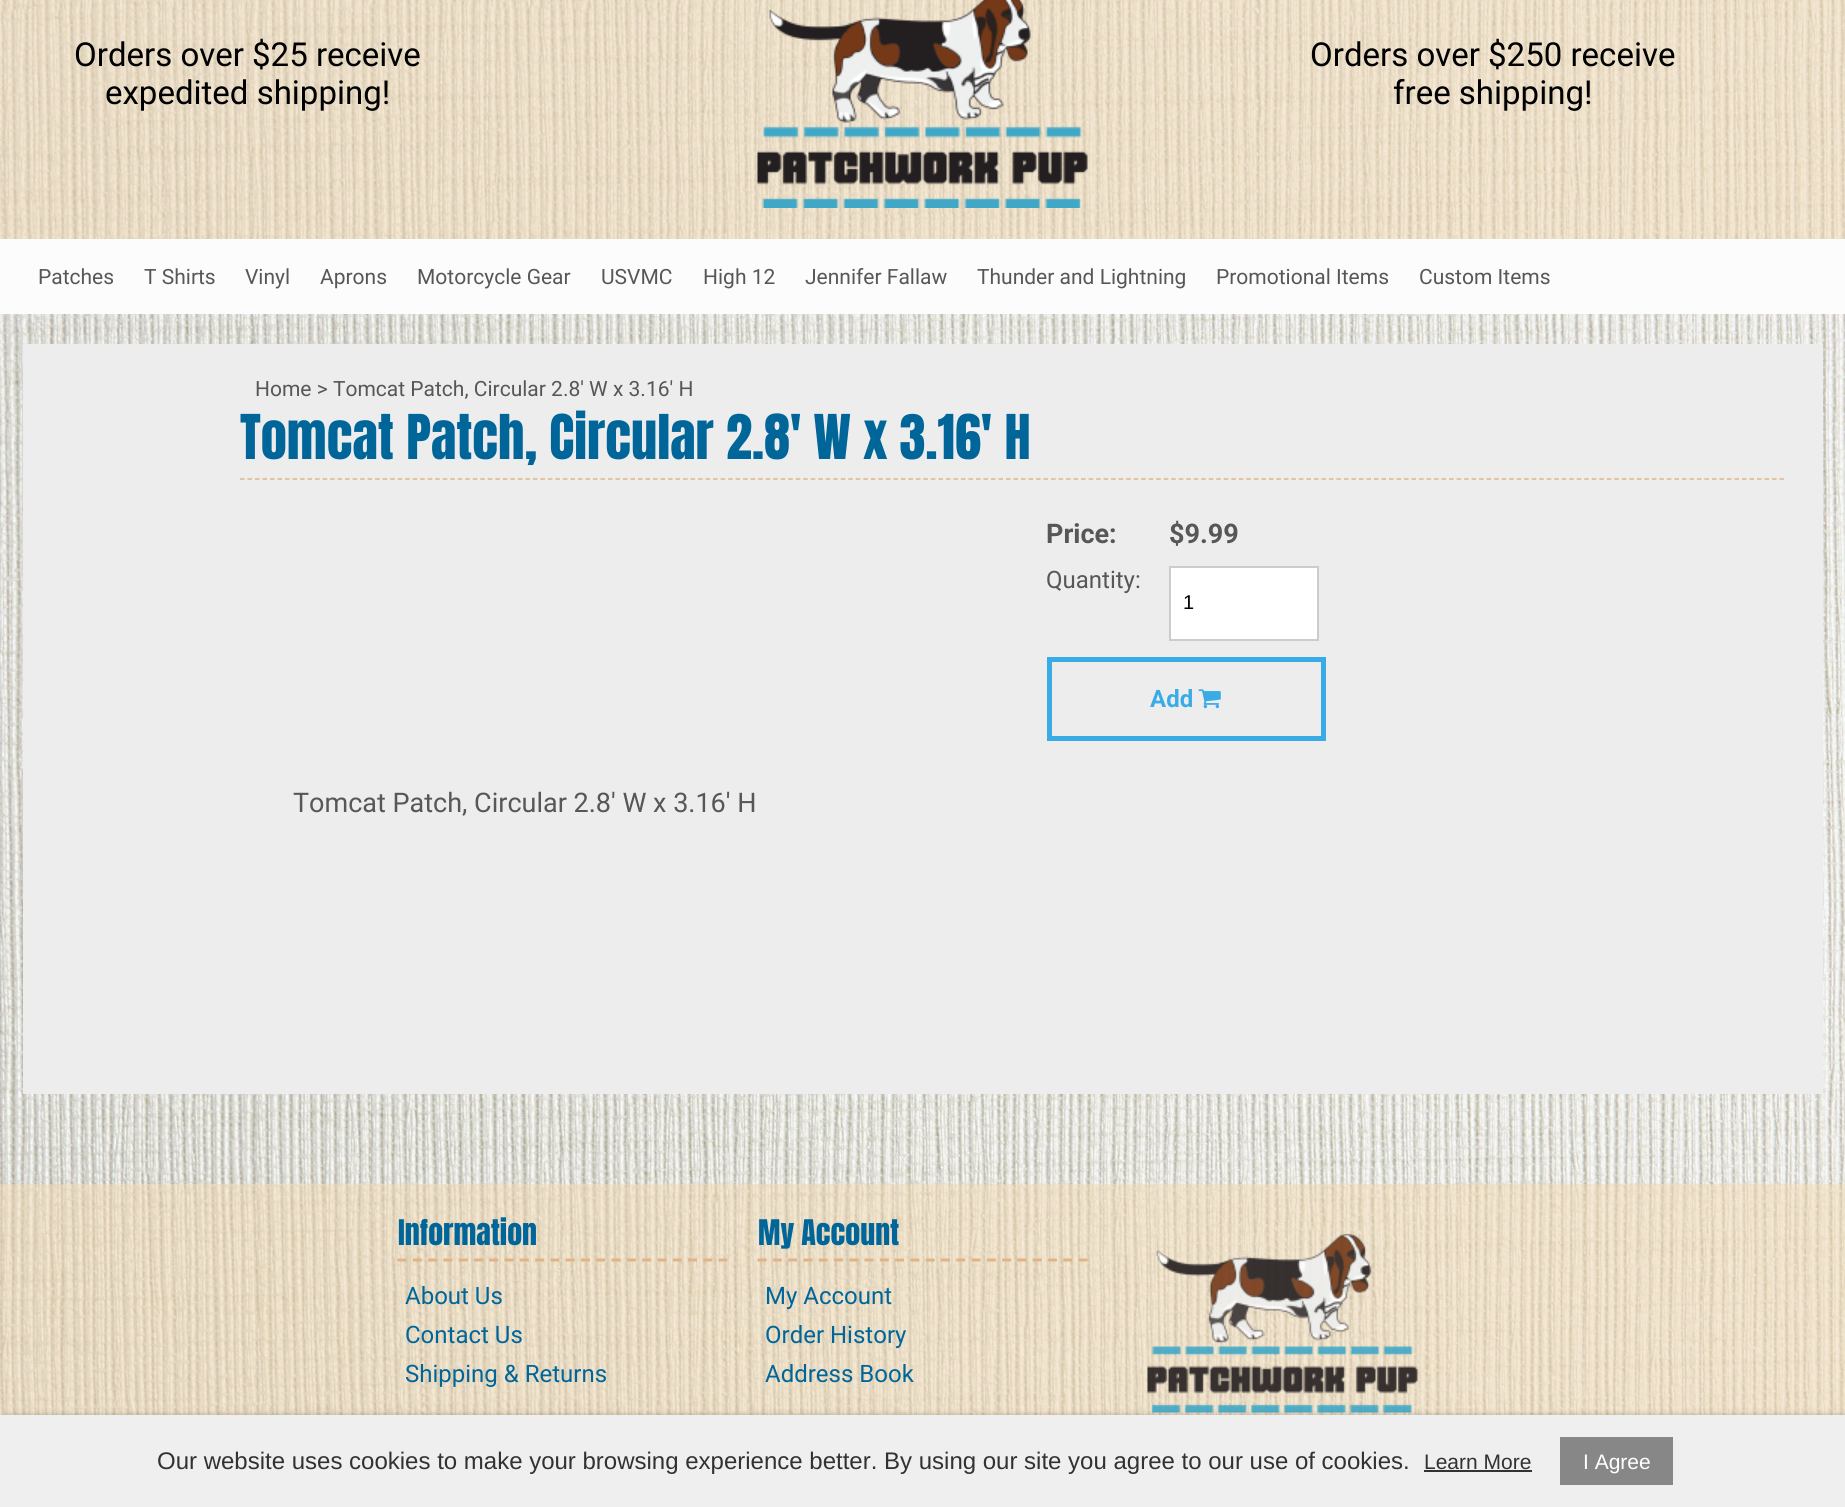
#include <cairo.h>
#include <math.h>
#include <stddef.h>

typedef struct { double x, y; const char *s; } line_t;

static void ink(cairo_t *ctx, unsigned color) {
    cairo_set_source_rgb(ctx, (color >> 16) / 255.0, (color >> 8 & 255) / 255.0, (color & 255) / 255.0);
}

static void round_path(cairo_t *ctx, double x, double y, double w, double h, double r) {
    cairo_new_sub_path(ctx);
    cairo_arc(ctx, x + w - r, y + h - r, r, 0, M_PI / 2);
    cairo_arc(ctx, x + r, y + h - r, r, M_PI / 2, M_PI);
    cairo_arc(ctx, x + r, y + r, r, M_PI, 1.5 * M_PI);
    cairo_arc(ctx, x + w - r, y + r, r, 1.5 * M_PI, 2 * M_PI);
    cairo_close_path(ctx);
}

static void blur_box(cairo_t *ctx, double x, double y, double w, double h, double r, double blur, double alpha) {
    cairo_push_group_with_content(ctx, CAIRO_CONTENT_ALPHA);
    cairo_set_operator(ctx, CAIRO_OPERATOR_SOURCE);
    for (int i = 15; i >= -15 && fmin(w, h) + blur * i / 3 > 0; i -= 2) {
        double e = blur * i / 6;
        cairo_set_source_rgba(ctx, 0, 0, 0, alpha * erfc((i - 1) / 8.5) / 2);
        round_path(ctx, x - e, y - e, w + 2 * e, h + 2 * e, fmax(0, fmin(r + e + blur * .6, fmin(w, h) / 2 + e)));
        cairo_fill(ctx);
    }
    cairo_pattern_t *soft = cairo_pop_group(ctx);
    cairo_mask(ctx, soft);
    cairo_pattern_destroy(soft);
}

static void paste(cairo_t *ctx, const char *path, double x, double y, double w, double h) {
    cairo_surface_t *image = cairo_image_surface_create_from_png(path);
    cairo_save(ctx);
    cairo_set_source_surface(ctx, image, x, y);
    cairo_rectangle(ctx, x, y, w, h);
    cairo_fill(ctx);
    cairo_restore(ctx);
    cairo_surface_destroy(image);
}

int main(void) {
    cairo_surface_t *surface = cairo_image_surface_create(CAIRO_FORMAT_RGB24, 1845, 1507);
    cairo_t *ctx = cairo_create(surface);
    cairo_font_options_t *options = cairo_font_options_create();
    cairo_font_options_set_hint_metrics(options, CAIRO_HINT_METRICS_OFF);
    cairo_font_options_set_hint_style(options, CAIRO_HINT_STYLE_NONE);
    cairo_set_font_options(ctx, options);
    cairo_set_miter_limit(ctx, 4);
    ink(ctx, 0xFFFFFF);
    cairo_paint(ctx);
    paste(ctx, "media/1.png", 0, 0, 1845, 1415);
    cairo_set_source_rgba(ctx, 0.957, 0.859, 0.698, 0.5);
    cairo_rectangle(ctx, 0, 0, 1845, 239);
    cairo_fill(ctx);
    cairo_select_font_face(ctx, "Roboto", CAIRO_FONT_SLANT_NORMAL, CAIRO_FONT_WEIGHT_NORMAL);
    cairo_set_font_size(ctx, 33);
    ink(ctx, 0x000000);
    cairo_move_to(ctx, 74, 66);
    cairo_show_text(ctx, "Orders over $25 receive");
    cairo_move_to(ctx, 105, 104);
    cairo_show_text(ctx, "expedited shipping!");
    paste(ctx, "media/2.png", 757, 0, 331, 208);
    cairo_move_to(ctx, 1310, 66);
    cairo_show_text(ctx, "Orders over $250 receive");
    cairo_move_to(ctx, 1393, 104);
    cairo_show_text(ctx, "free shipping!");
    ink(ctx, 0xFCFCFC);
    cairo_rectangle(ctx, 0, 239, 1845, 75);
    cairo_fill(ctx);
    cairo_set_font_size(ctx, 21);
    ink(ctx, 0x575757);
    {
        static const line_t items[] = {
            {38, 284, "Patches"},
            {144, 284, "T Shirts"},
            {245, 284, "Vinyl"},
            {320, 284, "Aprons"},
            {417, 284, "Motorcycle Gear"},
            {601, 284, "USVMC"},
            {703, 284, "High 12"},
            {805, 284, "Jennifer Fallaw"},
            {977, 284, "Thunder and Lightning"},
            {1216, 284, "Promotional Items"},
            {1419, 284, "Custom Items"},
        };
        for (size_t i = 0; i < sizeof items / sizeof *items; i++) {
            cairo_move_to(ctx, items[i].x, items[i].y);
            cairo_show_text(ctx, items[i].s);
        }
    }
    ink(ctx, 0xEDEDED);
    cairo_rectangle(ctx, 23, 344, 1800, 750);
    cairo_fill(ctx);
    ink(ctx, 0x575757);
    cairo_move_to(ctx, 255, 396);
    cairo_show_text(ctx, "Home > Tomcat Patch, Circular 2.8' W x 3.16' H");
    cairo_new_path(ctx);
    cairo_move_to(ctx, 240, 479);
    cairo_line_to(ctx, 1785, 479);
    ink(ctx, 0xE0B487);
    cairo_set_line_width(ctx, 1.5);
    cairo_set_dash(ctx, (double[]){4.5, 3.01}, 2, 0);
    cairo_stroke(ctx);
    cairo_select_font_face(ctx, "Anton", CAIRO_FONT_SLANT_NORMAL, CAIRO_FONT_WEIGHT_NORMAL);
    cairo_set_font_size(ctx, 52.5);
    ink(ctx, 0x006699);
    cairo_move_to(ctx, 240, 459);
    cairo_show_text(ctx, "Tomcat Patch, Circular 2.8' W x 3.16' H");
    cairo_select_font_face(ctx, "Roboto", CAIRO_FONT_SLANT_NORMAL, CAIRO_FONT_WEIGHT_BOLD);
    cairo_set_font_size(ctx, 27);
    ink(ctx, 0x575757);
    cairo_move_to(ctx, 1046, 543);
    cairo_show_text(ctx, "Price:");
    cairo_move_to(ctx, 1169, 543);
    cairo_show_text(ctx, "$9.99");
    cairo_select_font_face(ctx, "Roboto", CAIRO_FONT_SLANT_NORMAL, CAIRO_FONT_WEIGHT_NORMAL);
    cairo_set_font_size(ctx, 24);
    cairo_move_to(ctx, 1046, 588);
    cairo_show_text(ctx, "Quantity:");
    ink(ctx, 0xFFFFFF);
    cairo_rectangle(ctx, 1170, 567, 148, 73);
    cairo_fill_preserve(ctx);
    ink(ctx, 0xCCCCCC);
    cairo_set_line_width(ctx, 2);
    cairo_set_dash(ctx, NULL, 0, 0);
    cairo_stroke(ctx);
    cairo_select_font_face(ctx, "Liberation Sans", CAIRO_FONT_SLANT_NORMAL, CAIRO_FONT_WEIGHT_NORMAL);
    cairo_set_font_size(ctx, 20);
    ink(ctx, 0x000000);
    cairo_move_to(ctx, 1183, 609);
    cairo_show_text(ctx, "1");
    cairo_rectangle(ctx, 1049.5, 659.5, 274, 79);
    ink(ctx, 0x39ACE6);
    cairo_set_line_width(ctx, 5);
    cairo_stroke(ctx);
    cairo_select_font_face(ctx, "Roboto", CAIRO_FONT_SLANT_NORMAL, CAIRO_FONT_WEIGHT_BOLD);
    cairo_set_font_size(ctx, 24);
    cairo_move_to(ctx, 1150, 707);
    cairo_show_text(ctx, "Add");
    paste(ctx, "media/3.png", 1198, 689, 23, 20);
    cairo_select_font_face(ctx, "Roboto", CAIRO_FONT_SLANT_NORMAL, CAIRO_FONT_WEIGHT_NORMAL);
    cairo_set_font_size(ctx, 27);
    ink(ctx, 0x575757);
    cairo_move_to(ctx, 293, 812);
    cairo_show_text(ctx, "Tomcat Patch, Circular 2.8' W x 3.16' H");
    cairo_set_source_rgba(ctx, 0.957, 0.859, 0.698, 0.5);
    cairo_rectangle(ctx, 0, 1184, 1845, 231);
    cairo_fill(ctx);
    cairo_new_path(ctx);
    cairo_move_to(ctx, 397.5, 1260);
    cairo_line_to(ctx, 727.5, 1260);
    ink(ctx, 0xE0B487);
    cairo_set_line_width(ctx, 3);
    cairo_set_dash(ctx, (double[]){9, 6.29}, 2, 0);
    cairo_stroke(ctx);
    cairo_select_font_face(ctx, "Anton", CAIRO_FONT_SLANT_NORMAL, CAIRO_FONT_WEIGHT_NORMAL);
    cairo_set_font_size(ctx, 30);
    ink(ctx, 0x006699);
    cairo_move_to(ctx, 398, 1245);
    cairo_show_text(ctx, "Information");
    cairo_select_font_face(ctx, "Roboto", CAIRO_FONT_SLANT_NORMAL, CAIRO_FONT_WEIGHT_NORMAL);
    cairo_set_font_size(ctx, 24);
    {
        static const line_t items[] = {
            {405, 1304, "About Us"},
            {405, 1343, "Contact Us"},
            {405, 1382, "Shipping & Returns"},
        };
        for (size_t i = 0; i < sizeof items / sizeof *items; i++) {
            cairo_move_to(ctx, items[i].x, items[i].y);
            cairo_show_text(ctx, items[i].s);
        }
    }
    cairo_new_path(ctx);
    cairo_move_to(ctx, 757.5, 1260);
    cairo_line_to(ctx, 1087.5, 1260);
    ink(ctx, 0xE0B487);
    cairo_stroke(ctx);
    cairo_select_font_face(ctx, "Anton", CAIRO_FONT_SLANT_NORMAL, CAIRO_FONT_WEIGHT_NORMAL);
    cairo_set_font_size(ctx, 30);
    ink(ctx, 0x006699);
    cairo_move_to(ctx, 758, 1245);
    cairo_show_text(ctx, "My Account");
    cairo_select_font_face(ctx, "Roboto", CAIRO_FONT_SLANT_NORMAL, CAIRO_FONT_WEIGHT_NORMAL);
    cairo_set_font_size(ctx, 24);
    {
        static const line_t items[] = {
            {765, 1304, "My Account"},
            {765, 1343, "Order History"},
            {765, 1382, "Address Book"},
        };
        for (size_t i = 0; i < sizeof items / sizeof *items; i++) {
            cairo_move_to(ctx, items[i].x, items[i].y);
            cairo_show_text(ctx, items[i].s);
        }
    }
    paste(ctx, "media/4.png", 1147, 1233, 271, 180);
    ink(ctx, 0x000000);
    blur_box(ctx, 5, 1418, 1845, 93, 0, 4, 0.6);
    ink(ctx, 0xEFEFEF);
    cairo_rectangle(ctx, 0, 1415, 1845, 92);
    cairo_fill(ctx);
    cairo_select_font_face(ctx, "Liberation Sans", CAIRO_FONT_SLANT_NORMAL, CAIRO_FONT_WEIGHT_NORMAL);
    ink(ctx, 0x323232);
    cairo_move_to(ctx, 157, 1469);
    cairo_show_text(ctx, "Our website uses cookies to make your browsing experience better. By using our site you agree to our use of cookies.");
    cairo_set_font_size(ctx, 21);
    cairo_move_to(ctx, 1424, 1469);
    cairo_show_text(ctx, "Learn More");
    cairo_rectangle(ctx, 1424, 1470, 108, 2);
    cairo_fill(ctx);
    ink(ctx, 0x878787);
    cairo_rectangle(ctx, 1560, 1437, 113, 48);
    cairo_fill(ctx);
    ink(ctx, 0xFFFFFF);
    cairo_move_to(ctx, 1583, 1469);
    cairo_show_text(ctx, "I Agree");
    cairo_surface_write_to_png(surface, "image.png");
    cairo_font_options_destroy(options);
    cairo_destroy(ctx);
    cairo_surface_destroy(surface);
    return 0;
}
